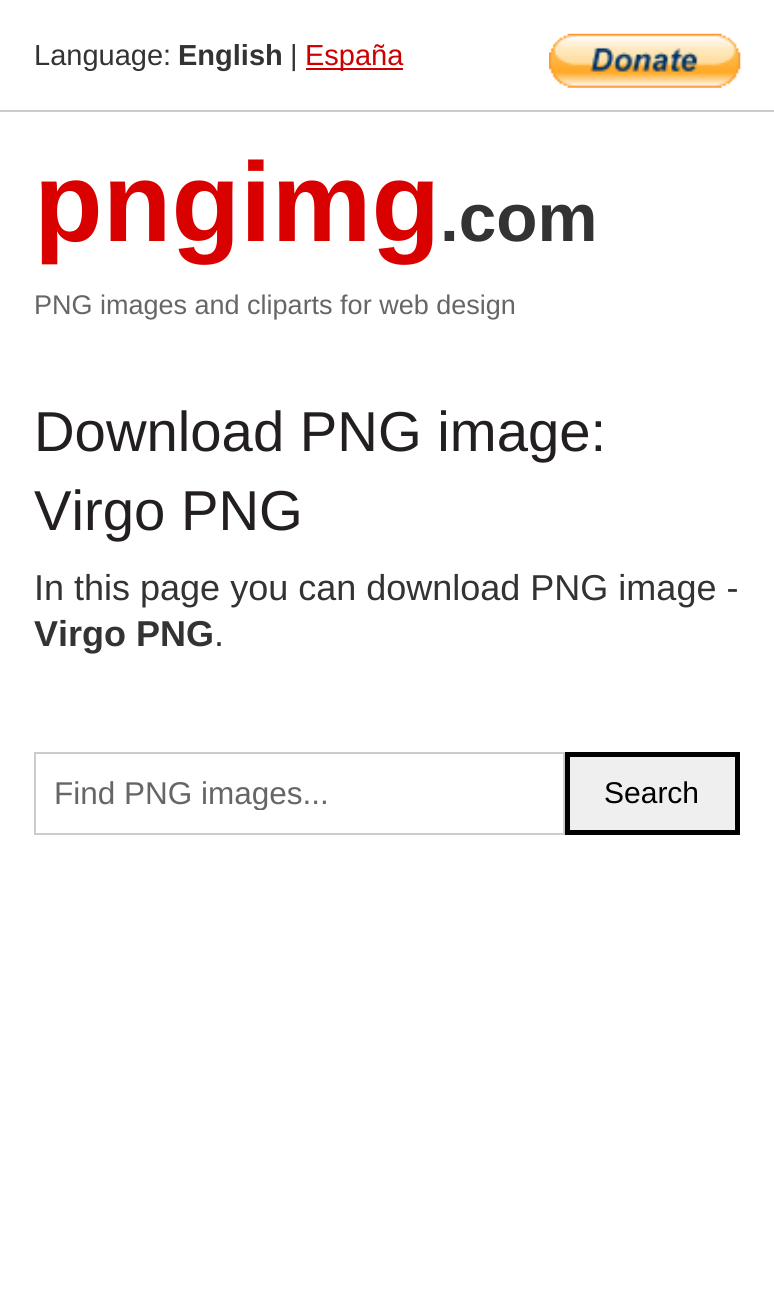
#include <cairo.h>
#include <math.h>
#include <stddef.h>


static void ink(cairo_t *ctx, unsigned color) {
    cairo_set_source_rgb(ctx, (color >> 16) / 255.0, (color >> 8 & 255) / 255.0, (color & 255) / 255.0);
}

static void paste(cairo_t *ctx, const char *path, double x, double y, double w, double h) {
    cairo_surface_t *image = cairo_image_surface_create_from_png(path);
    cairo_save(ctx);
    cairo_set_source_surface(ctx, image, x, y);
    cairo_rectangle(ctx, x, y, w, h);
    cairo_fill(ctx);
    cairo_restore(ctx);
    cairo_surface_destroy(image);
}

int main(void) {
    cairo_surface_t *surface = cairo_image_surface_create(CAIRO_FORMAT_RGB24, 774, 1289);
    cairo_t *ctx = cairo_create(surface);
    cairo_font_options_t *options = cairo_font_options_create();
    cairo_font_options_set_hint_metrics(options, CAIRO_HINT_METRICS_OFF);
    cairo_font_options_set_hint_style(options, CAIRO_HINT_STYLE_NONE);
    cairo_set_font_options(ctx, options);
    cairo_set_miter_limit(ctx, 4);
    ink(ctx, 0xFFFFFF);
    cairo_paint(ctx);
    ink(ctx, 0xCCCCCC);
    cairo_rectangle(ctx, 0, 110, 774, 2);
    cairo_fill(ctx);
    cairo_select_font_face(ctx, "Liberation Sans", CAIRO_FONT_SLANT_NORMAL, CAIRO_FONT_WEIGHT_NORMAL);
    cairo_set_font_size(ctx, 29);
    ink(ctx, 0x333333);
    cairo_move_to(ctx, 34, 65);
    cairo_show_text(ctx, "Language:");
    cairo_select_font_face(ctx, "Liberation Sans", CAIRO_FONT_SLANT_NORMAL, CAIRO_FONT_WEIGHT_BOLD);
    cairo_move_to(ctx, 178, 65);
    cairo_show_text(ctx, "English");
    cairo_select_font_face(ctx, "Liberation Sans", CAIRO_FONT_SLANT_NORMAL, CAIRO_FONT_WEIGHT_NORMAL);
    cairo_move_to(ctx, 290, 65);
    cairo_show_text(ctx, "|");
    ink(ctx, 0xCC0000);
    cairo_rectangle(ctx, 306, 68, 97, 2);
    cairo_fill(ctx);
    cairo_move_to(ctx, 305, 65);
    cairo_show_text(ctx, "España");
    paste(ctx, "media/1.png", 549, 33, 192, 55);
    cairo_select_font_face(ctx, "Liberation Sans", CAIRO_FONT_SLANT_NORMAL, CAIRO_FONT_WEIGHT_BOLD);
    cairo_set_font_size(ctx, 112.5);
    ink(ctx, 0xD90000);
    cairo_move_to(ctx, 34, 241);
    cairo_show_text(ctx, "pngimg");
    cairo_set_font_size(ctx, 67.5);
    ink(ctx, 0x333333);
    cairo_move_to(ctx, 440, 241);
    cairo_show_text(ctx, ".com");
    cairo_select_font_face(ctx, "Liberation Sans", CAIRO_FONT_SLANT_NORMAL, CAIRO_FONT_WEIGHT_NORMAL);
    cairo_set_font_size(ctx, 27);
    ink(ctx, 0x666666);
    cairo_move_to(ctx, 34, 314);
    cairo_show_text(ctx, "PNG images and cliparts for web design");
    cairo_set_font_size(ctx, 56.25);
    ink(ctx, 0x231F1F);
    cairo_move_to(ctx, 34, 451);
    cairo_show_text(ctx, "Download PNG image:");
    cairo_move_to(ctx, 34, 530);
    cairo_show_text(ctx, "Virgo PNG");
    cairo_set_font_size(ctx, 36);
    ink(ctx, 0x333333);
    cairo_move_to(ctx, 34, 600);
    cairo_show_text(ctx, "In this page you can download PNG image -");
    cairo_select_font_face(ctx, "Liberation Sans", CAIRO_FONT_SLANT_NORMAL, CAIRO_FONT_WEIGHT_BOLD);
    cairo_move_to(ctx, 34, 646);
    cairo_show_text(ctx, "Virgo PNG");
    cairo_select_font_face(ctx, "Liberation Sans", CAIRO_FONT_SLANT_NORMAL, CAIRO_FONT_WEIGHT_NORMAL);
    cairo_move_to(ctx, 214, 646);
    cairo_show_text(ctx, ".");
    cairo_rectangle(ctx, 35, 753, 529, 81);
    ink(ctx, 0xCCCCCC);
    cairo_stroke(ctx);
    cairo_save(ctx);
    cairo_rectangle(ctx, 54, 774, 491, 36);
    cairo_clip(ctx);
    cairo_set_font_size(ctx, 31.5);
    ink(ctx, 0x666666);
    cairo_move_to(ctx, 54, 804);
    cairo_show_text(ctx, "Find PNG images...");
    cairo_restore(ctx);
    ink(ctx, 0xEFEFEF);
    cairo_rectangle(ctx, 567.5, 754.5, 170, 78);
    cairo_fill_preserve(ctx);
    ink(ctx, 0x000000);
    cairo_set_line_width(ctx, 5);
    cairo_stroke(ctx);
    cairo_set_font_size(ctx, 30);
    cairo_move_to(ctx, 604, 803);
    cairo_show_text(ctx, "Search");
    cairo_surface_write_to_png(surface, "image.png");
    cairo_font_options_destroy(options);
    cairo_destroy(ctx);
    cairo_surface_destroy(surface);
    return 0;
}
